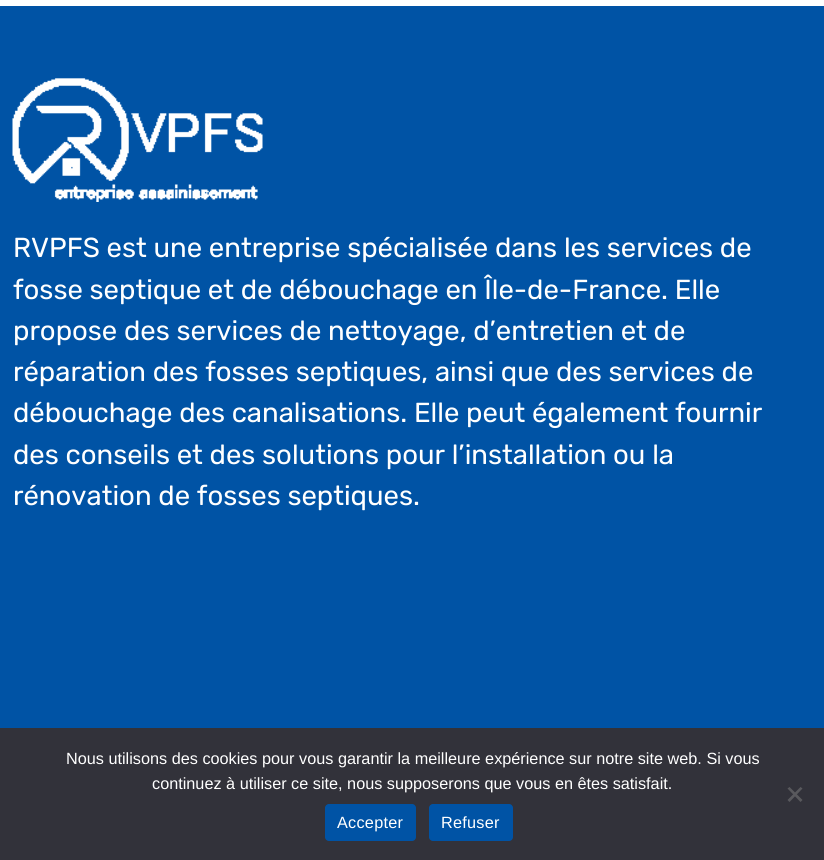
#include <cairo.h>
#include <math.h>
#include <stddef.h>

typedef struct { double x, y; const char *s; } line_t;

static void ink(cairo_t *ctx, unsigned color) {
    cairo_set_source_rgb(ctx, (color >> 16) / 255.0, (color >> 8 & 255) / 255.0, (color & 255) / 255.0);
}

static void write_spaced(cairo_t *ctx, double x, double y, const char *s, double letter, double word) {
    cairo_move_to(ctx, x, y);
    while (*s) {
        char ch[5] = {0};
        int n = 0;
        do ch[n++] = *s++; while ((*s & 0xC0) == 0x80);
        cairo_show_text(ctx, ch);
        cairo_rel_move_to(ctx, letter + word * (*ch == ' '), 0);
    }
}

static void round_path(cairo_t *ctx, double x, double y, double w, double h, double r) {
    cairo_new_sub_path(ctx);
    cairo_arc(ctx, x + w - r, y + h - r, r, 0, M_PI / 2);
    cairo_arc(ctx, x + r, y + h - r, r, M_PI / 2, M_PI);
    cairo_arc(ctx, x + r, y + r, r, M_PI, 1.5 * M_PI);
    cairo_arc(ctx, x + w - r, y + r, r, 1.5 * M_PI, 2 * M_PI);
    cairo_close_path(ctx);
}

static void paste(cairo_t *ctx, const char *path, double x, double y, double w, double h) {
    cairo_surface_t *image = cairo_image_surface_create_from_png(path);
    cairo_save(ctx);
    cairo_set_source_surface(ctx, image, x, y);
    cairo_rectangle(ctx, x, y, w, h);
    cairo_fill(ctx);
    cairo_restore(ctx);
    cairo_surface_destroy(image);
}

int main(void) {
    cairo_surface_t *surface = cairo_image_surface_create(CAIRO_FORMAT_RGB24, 824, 860);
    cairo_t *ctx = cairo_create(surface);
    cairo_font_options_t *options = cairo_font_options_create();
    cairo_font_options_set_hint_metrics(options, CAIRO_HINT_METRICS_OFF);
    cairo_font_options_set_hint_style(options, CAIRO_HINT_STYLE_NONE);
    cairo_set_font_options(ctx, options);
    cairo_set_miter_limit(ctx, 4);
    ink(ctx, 0xFFFFFF);
    cairo_paint(ctx);
    ink(ctx, 0x0053A5);
    cairo_rectangle(ctx, 0, 6, 824, 722);
    cairo_fill(ctx);
    paste(ctx, "media/1.png", 12, 78, 251, 124);
    cairo_select_font_face(ctx, "Rubik", CAIRO_FONT_SLANT_NORMAL, CAIRO_FONT_WEIGHT_NORMAL);
    cairo_set_font_size(ctx, 27.5);
    ink(ctx, 0xFFFFFF);
    {
        static const line_t items[] = {
            {13, 257, "RVPFS est une entreprise spécialisée dans les services de"},
            {13, 299, "fosse septique et de débouchage en Île-de-France. Elle"},
            {13, 340, "propose des services de nettoyage, d’entretien et de"},
            {13, 381, "réparation des fosses septiques, ainsi que des services de"},
            {13, 422, "débouchage des canalisations. Elle peut également fournir"},
            {13, 464, "des conseils et des solutions pour l’installation ou la"},
            {13, 505, "rénovation de fosses septiques."},
        };
        for (size_t i = 0; i < sizeof items / sizeof *items; i++) {
            cairo_move_to(ctx, items[i].x, items[i].y);
            cairo_show_text(ctx, items[i].s);
        }
    }
    ink(ctx, 0x32323A);
    cairo_rectangle(ctx, 0, 728, 824, 132);
    cairo_fill(ctx);
    cairo_select_font_face(ctx, "Liberation Sans", CAIRO_FONT_SLANT_NORMAL, CAIRO_FONT_WEIGHT_NORMAL);
    cairo_set_font_size(ctx, 16.25);
    ink(ctx, 0xFFFFFF);
    cairo_move_to(ctx, 66, 764);
    cairo_show_text(ctx, "Nous utilisons des cookies pour vous garantir la meilleure expérience sur notre site web. Si vous");
    cairo_move_to(ctx, 152, 789);
    cairo_show_text(ctx, "continuez à utiliser ce site, nous supposerons que vous en êtes satisfait.");
    ink(ctx, 0x59595D);
    cairo_new_path(ctx);
    cairo_move_to(ctx, 800.5, 787);
    cairo_line_to(ctx, 802.5, 788.5);
    cairo_line_to(ctx, 789.5, 802);
    cairo_line_to(ctx, 787.5, 800);
    cairo_close_path(ctx);
    cairo_fill(ctx);
    cairo_new_path(ctx);
    cairo_move_to(ctx, 787.5, 788.5);
    cairo_line_to(ctx, 789.5, 787);
    cairo_line_to(ctx, 802.5, 800);
    cairo_line_to(ctx, 800.5, 802);
    cairo_close_path(ctx);
    cairo_fill(ctx);
    ink(ctx, 0x0053A5);
    round_path(ctx, 325, 804, 91, 37, 4);
    cairo_fill(ctx);
    ink(ctx, 0xFFFFFF);
    write_spaced(ctx, 337, 828, "Accepter", 0.25, 0);
    ink(ctx, 0x0053A5);
    round_path(ctx, 429, 804, 84, 37, 4);
    cairo_fill(ctx);
    ink(ctx, 0xFFFFFF);
    write_spaced(ctx, 441, 828, "Refuser", 0.25, 0);
    cairo_surface_write_to_png(surface, "image.png");
    cairo_font_options_destroy(options);
    cairo_destroy(ctx);
    cairo_surface_destroy(surface);
    return 0;
}
